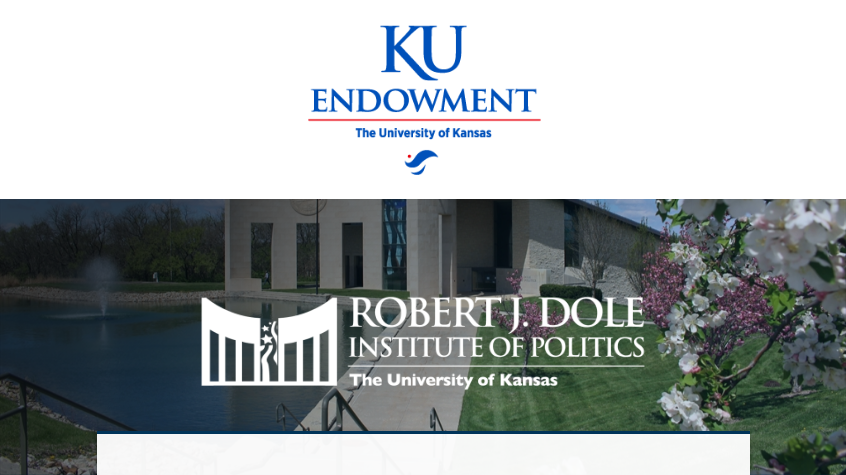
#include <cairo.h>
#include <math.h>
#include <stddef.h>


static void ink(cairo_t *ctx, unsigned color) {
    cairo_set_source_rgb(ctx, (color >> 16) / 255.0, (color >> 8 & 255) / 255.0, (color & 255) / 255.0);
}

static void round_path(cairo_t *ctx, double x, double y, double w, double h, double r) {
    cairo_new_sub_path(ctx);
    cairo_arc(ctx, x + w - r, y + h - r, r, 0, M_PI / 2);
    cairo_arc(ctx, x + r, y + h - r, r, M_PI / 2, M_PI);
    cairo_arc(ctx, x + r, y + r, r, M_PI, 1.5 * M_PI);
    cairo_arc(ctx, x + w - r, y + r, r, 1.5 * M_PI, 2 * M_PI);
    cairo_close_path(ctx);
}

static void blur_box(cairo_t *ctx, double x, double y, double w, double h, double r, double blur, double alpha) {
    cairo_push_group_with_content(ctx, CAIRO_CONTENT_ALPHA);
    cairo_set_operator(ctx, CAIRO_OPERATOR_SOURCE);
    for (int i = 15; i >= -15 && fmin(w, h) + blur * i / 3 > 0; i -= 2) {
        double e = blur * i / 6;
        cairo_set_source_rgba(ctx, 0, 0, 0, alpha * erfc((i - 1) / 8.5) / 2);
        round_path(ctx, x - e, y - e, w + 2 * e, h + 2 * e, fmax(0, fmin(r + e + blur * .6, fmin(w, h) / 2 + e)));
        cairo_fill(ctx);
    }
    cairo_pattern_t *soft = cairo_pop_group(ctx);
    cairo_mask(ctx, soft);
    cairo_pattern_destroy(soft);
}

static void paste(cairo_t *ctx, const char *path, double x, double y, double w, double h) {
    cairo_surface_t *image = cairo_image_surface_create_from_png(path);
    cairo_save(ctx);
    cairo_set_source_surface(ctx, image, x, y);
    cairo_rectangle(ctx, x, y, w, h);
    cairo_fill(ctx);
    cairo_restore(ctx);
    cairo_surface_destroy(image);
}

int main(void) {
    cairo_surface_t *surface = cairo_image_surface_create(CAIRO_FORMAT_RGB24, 846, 475);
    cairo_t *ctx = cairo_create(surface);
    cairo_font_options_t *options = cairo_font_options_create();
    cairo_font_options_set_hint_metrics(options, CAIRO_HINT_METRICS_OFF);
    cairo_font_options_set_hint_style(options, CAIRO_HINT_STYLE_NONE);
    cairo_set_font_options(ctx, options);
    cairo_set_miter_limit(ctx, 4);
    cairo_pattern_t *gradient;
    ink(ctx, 0x003459);
    cairo_paint(ctx);
    ink(ctx, 0xFFFFFF);
    cairo_rectangle(ctx, 0, 0, 846, 199);
    cairo_fill(ctx);
    paste(ctx, "media/1.png", 308, 25, 233, 150);
    paste(ctx, "media/2.png", 0, 199, 846, 276);
    gradient = cairo_pattern_create_linear(67, 133, 780, 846);
    cairo_pattern_add_color_stop_rgba(gradient, 0.1, 0, 0, 0, 0.65);
    cairo_pattern_add_color_stop_rgba(gradient, 0.5, 0, 0, 0, 0);
    cairo_set_source(ctx, gradient);
    cairo_pattern_destroy(gradient);
    cairo_rectangle(ctx, 0, 199, 692, 276);
    cairo_fill(ctx);
    paste(ctx, "media/3.png", 201, 296, 444, 94);
    cairo_save(ctx);
    cairo_set_fill_rule(ctx, CAIRO_FILL_RULE_EVEN_ODD);
    cairo_new_path(ctx);
    cairo_move_to(ctx, 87, 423);
    cairo_line_to(ctx, 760, 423);
    cairo_line_to(ctx, 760, 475);
    cairo_line_to(ctx, 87, 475);
    cairo_close_path(ctx);
    cairo_move_to(ctx, 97, 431);
    cairo_line_to(ctx, 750, 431);
    cairo_line_to(ctx, 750, 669);
    cairo_line_to(ctx, 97, 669);
    cairo_close_path(ctx);
    cairo_clip(ctx);
    ink(ctx, 0x000000);
    blur_box(ctx, 97, 433, 653, 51, 0, 3, 0.3);
    cairo_restore(ctx);
    cairo_set_source_rgba(ctx, 1, 1, 1, 0.95);
    cairo_rectangle(ctx, 97, 434, 653, 41);
    cairo_fill(ctx);
    ink(ctx, 0x003459);
    cairo_rectangle(ctx, 97, 431, 653, 3);
    cairo_fill(ctx);
    cairo_surface_write_to_png(surface, "image.png");
    cairo_font_options_destroy(options);
    cairo_destroy(ctx);
    cairo_surface_destroy(surface);
    return 0;
}
